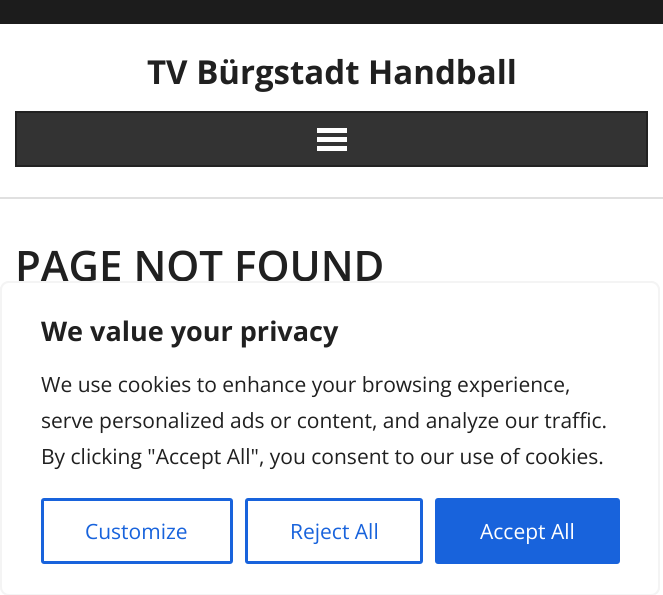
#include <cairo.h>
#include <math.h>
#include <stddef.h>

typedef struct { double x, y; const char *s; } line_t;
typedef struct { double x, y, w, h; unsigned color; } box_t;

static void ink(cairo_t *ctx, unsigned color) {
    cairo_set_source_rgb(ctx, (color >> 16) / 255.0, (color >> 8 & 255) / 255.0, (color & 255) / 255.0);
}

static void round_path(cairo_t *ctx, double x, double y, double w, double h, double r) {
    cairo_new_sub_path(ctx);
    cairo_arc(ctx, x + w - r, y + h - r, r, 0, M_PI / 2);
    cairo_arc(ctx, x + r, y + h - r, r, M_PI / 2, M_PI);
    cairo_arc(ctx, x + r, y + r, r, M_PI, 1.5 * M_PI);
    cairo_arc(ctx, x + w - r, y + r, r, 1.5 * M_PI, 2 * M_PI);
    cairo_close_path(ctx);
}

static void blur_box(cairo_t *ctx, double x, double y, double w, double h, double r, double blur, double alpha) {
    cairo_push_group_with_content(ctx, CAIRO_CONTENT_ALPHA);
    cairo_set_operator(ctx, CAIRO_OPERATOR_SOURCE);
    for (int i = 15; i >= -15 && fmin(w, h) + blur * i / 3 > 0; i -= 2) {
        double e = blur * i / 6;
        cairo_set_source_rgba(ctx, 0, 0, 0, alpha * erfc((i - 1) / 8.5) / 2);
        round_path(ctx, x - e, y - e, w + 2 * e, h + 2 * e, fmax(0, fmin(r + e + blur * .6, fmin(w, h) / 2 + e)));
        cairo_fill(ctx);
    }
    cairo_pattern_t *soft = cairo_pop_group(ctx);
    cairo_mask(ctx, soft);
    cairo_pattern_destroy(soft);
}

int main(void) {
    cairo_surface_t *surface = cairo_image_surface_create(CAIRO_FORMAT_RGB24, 663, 595);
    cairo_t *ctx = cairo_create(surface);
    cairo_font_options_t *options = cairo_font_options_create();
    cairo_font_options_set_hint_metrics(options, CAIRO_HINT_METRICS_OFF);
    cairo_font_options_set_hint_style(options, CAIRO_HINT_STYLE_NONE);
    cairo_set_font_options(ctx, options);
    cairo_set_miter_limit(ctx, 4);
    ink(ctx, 0xFFFFFF);
    cairo_paint(ctx);
    ink(ctx, 0x1C1C1C);
    cairo_rectangle(ctx, 0, 0, 663, 24);
    cairo_fill(ctx);
    ink(ctx, 0xE0E0E0);
    cairo_rectangle(ctx, 0, 197, 663, 2);
    cairo_fill(ctx);
    cairo_select_font_face(ctx, "Open Sans", CAIRO_FONT_SLANT_NORMAL, CAIRO_FONT_WEIGHT_BOLD);
    cairo_set_font_size(ctx, 33);
    ink(ctx, 0x202020);
    cairo_move_to(ctx, 147, 84);
    cairo_show_text(ctx, "TV Bürgstadt Handball");
    ink(ctx, 0x333333);
    cairo_rectangle(ctx, 16, 112, 631, 54);
    cairo_fill_preserve(ctx);
    ink(ctx, 0x222222);
    cairo_stroke(ctx);
    {
        static const box_t items[] = {
            {317, 128, 30, 5, 0xFFFFFF},
            {317, 137, 30, 5, 0xFFFFFF},
            {317, 146, 30, 5, 0xFFFFFF},
        };
        for (size_t i = 0; i < sizeof items / sizeof *items; i++) {
            ink(ctx, items[i].color);
            cairo_rectangle(ctx, items[i].x, items[i].y, items[i].w, items[i].h);
            cairo_fill(ctx);
        }
    }
    cairo_select_font_face(ctx, "Open Sans SemiBold", CAIRO_FONT_SLANT_NORMAL, CAIRO_FONT_WEIGHT_NORMAL);
    cairo_set_font_size(ctx, 42);
    ink(ctx, 0x202020);
    cairo_move_to(ctx, 15, 281);
    cairo_show_text(ctx, "PAGE NOT FOUND");
    cairo_save(ctx);
    round_path(ctx, 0, 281, 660, 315, 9);
    cairo_clip(ctx);
    ink(ctx, 0xACABAB);
    blur_box(ctx, 0, 279, 660, 315, 9, 7.5, 0.3);
    cairo_restore(ctx);
    ink(ctx, 0xFFFFFF);
    round_path(ctx, 1, 282, 658, 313, 8);
    cairo_fill_preserve(ctx);
    ink(ctx, 0xF4F4F4);
    cairo_stroke(ctx);
    cairo_select_font_face(ctx, "Open Sans", CAIRO_FONT_SLANT_NORMAL, CAIRO_FONT_WEIGHT_BOLD);
    cairo_set_font_size(ctx, 27);
    ink(ctx, 0x202020);
    cairo_move_to(ctx, 41, 341);
    cairo_show_text(ctx, "We value your privacy");
    cairo_select_font_face(ctx, "Open Sans", CAIRO_FONT_SLANT_NORMAL, CAIRO_FONT_WEIGHT_NORMAL);
    cairo_set_font_size(ctx, 21);
    {
        static const line_t items[] = {
            {41, 392, "We use cookies to enhance your browsing experience,"},
            {41, 428, "serve personalized ads or content, and analyze our traffic."},
            {41, 464, "By clicking \"Accept All\", you consent to our use of cookies."},
        };
        for (size_t i = 0; i < sizeof items / sizeof *items; i++) {
            cairo_move_to(ctx, items[i].x, items[i].y);
            cairo_show_text(ctx, items[i].s);
        }
    }
    round_path(ctx, 42.5, 499.5, 189, 63, 1.5);
    ink(ctx, 0x1863DC);
    cairo_set_line_width(ctx, 3);
    cairo_stroke(ctx);
    cairo_move_to(ctx, 85, 539);
    cairo_show_text(ctx, "Customize");
    round_path(ctx, 246.5, 499.5, 175, 63, 1.5);
    cairo_stroke(ctx);
    cairo_move_to(ctx, 290, 539);
    cairo_show_text(ctx, "Reject All");
    round_path(ctx, 436.5, 499.5, 182, 63, 1.5);
    cairo_fill_preserve(ctx);
    cairo_stroke(ctx);
    ink(ctx, 0xFFFFFF);
    cairo_move_to(ctx, 480, 539);
    cairo_show_text(ctx, "Accept All");
    cairo_surface_write_to_png(surface, "image.png");
    cairo_font_options_destroy(options);
    cairo_destroy(ctx);
    cairo_surface_destroy(surface);
    return 0;
}
